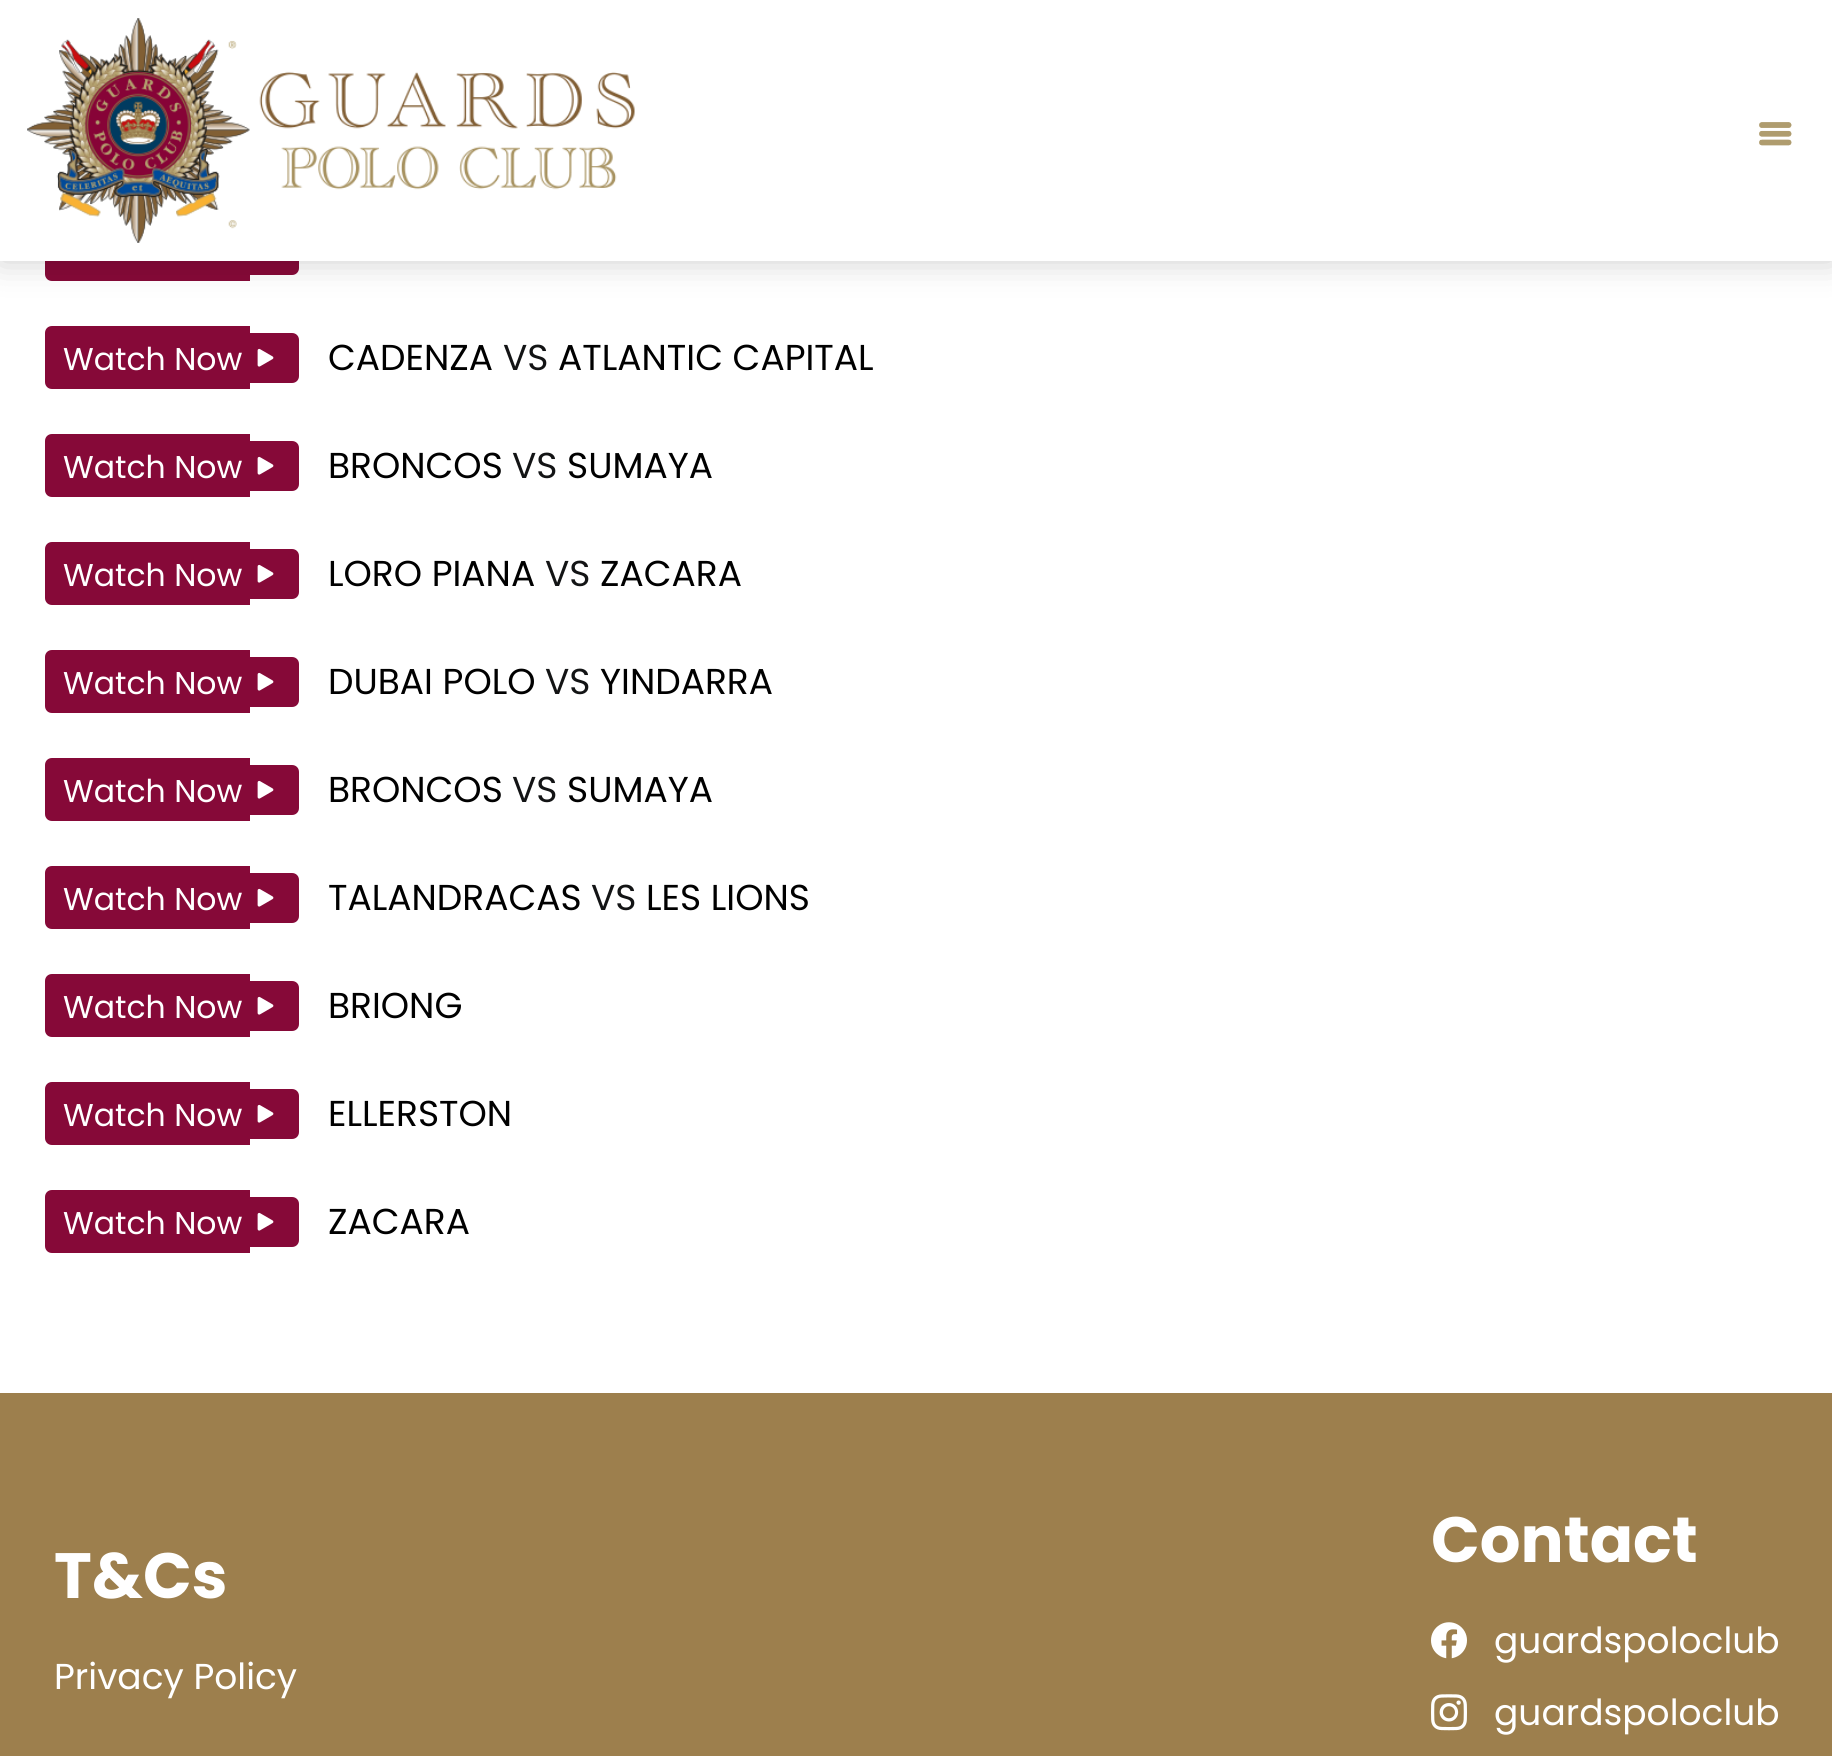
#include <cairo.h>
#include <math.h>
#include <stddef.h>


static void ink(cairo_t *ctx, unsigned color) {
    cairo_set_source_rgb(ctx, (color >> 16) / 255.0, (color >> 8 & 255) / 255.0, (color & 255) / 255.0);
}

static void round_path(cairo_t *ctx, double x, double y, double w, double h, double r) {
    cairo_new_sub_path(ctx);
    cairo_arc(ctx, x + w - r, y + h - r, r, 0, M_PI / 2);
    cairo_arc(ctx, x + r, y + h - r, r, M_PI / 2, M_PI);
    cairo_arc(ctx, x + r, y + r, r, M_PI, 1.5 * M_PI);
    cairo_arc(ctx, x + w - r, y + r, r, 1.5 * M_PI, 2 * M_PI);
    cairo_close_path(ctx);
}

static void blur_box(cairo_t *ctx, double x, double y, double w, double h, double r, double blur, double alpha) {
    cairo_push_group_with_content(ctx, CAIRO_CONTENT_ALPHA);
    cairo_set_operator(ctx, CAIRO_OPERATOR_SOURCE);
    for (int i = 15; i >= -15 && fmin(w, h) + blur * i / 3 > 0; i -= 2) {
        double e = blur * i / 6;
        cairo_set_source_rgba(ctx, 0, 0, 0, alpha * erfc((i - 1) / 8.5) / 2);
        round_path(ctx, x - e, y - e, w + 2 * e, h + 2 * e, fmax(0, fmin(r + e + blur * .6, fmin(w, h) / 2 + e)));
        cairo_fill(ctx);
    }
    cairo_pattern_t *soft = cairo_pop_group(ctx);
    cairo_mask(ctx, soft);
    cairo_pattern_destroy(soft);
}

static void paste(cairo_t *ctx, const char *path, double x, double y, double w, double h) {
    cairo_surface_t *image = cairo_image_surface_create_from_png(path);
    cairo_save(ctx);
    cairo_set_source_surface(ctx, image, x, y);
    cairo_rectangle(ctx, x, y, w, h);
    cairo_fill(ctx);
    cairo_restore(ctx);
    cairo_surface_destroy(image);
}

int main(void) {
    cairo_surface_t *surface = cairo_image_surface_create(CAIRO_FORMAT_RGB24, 1832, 1756);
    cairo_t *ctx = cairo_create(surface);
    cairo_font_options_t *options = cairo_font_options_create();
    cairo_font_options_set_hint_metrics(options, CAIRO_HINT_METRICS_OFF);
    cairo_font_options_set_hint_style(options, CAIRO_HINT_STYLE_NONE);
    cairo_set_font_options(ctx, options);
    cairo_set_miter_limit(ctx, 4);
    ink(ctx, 0xFFFFFF);
    cairo_paint(ctx);
    ink(ctx, 0x860938);
    cairo_new_path(ctx);
    cairo_move_to(ctx, 52, 218);
    cairo_line_to(ctx, 250, 218);
    cairo_line_to(ctx, 250, 281);
    cairo_line_to(ctx, 52, 281);
    cairo_curve_to(ctx, 48, 281, 45, 278, 45, 274);
    cairo_line_to(ctx, 45, 225);
    cairo_curve_to(ctx, 45, 221, 48, 218, 52, 218);
    cairo_close_path(ctx);
    cairo_fill(ctx);
    cairo_new_path(ctx);
    cairo_move_to(ctx, 250, 225);
    cairo_line_to(ctx, 292, 225);
    cairo_curve_to(ctx, 296, 225, 299, 228, 299, 232);
    cairo_line_to(ctx, 299, 268);
    cairo_curve_to(ctx, 299, 272, 296, 275, 292, 275);
    cairo_line_to(ctx, 250, 275);
    cairo_close_path(ctx);
    cairo_fill(ctx);
    ink(ctx, 0x000000);
    blur_box(ctx, 0, 0, 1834, 261, 0, 17, 0.2);
    ink(ctx, 0xFFFFFF);
    cairo_rectangle(ctx, 0, 0, 1832, 261);
    cairo_fill(ctx);
    paste(ctx, "media/1.png", 27, 18, 608, 225);
    paste(ctx, "media/2.png", 1759, 122, 33, 24);
    ink(ctx, 0x860938);
    cairo_new_path(ctx);
    cairo_move_to(ctx, 52, 326);
    cairo_line_to(ctx, 250, 326);
    cairo_line_to(ctx, 250, 389);
    cairo_line_to(ctx, 52, 389);
    cairo_curve_to(ctx, 48, 389, 45, 386, 45, 382);
    cairo_line_to(ctx, 45, 333);
    cairo_curve_to(ctx, 45, 329, 48, 326, 52, 326);
    cairo_close_path(ctx);
    cairo_fill(ctx);
    cairo_new_path(ctx);
    cairo_move_to(ctx, 250, 333);
    cairo_line_to(ctx, 292, 333);
    cairo_curve_to(ctx, 296, 333, 299, 336, 299, 340);
    cairo_line_to(ctx, 299, 376);
    cairo_curve_to(ctx, 299, 380, 296, 383, 292, 383);
    cairo_line_to(ctx, 250, 383);
    cairo_close_path(ctx);
    cairo_fill(ctx);
    cairo_select_font_face(ctx, "Poppins", CAIRO_FONT_SLANT_NORMAL, CAIRO_FONT_WEIGHT_NORMAL);
    cairo_set_font_size(ctx, 31.5);
    ink(ctx, 0xFFFFFF);
    cairo_move_to(ctx, 63, 370);
    cairo_show_text(ctx, "Watch Now");
    paste(ctx, "media/3.png", 257, 348, 17, 19);
    cairo_set_font_size(ctx, 36);
    ink(ctx, 0x000000);
    cairo_move_to(ctx, 328, 370);
    cairo_show_text(ctx, "CADENZA");
    ink(ctx, 0x131415);
    cairo_move_to(ctx, 503, 370);
    cairo_show_text(ctx, "VS");
    ink(ctx, 0x000000);
    cairo_move_to(ctx, 558, 370);
    cairo_show_text(ctx, "ATLANTIC CAPITAL");
    ink(ctx, 0x860938);
    cairo_new_path(ctx);
    cairo_move_to(ctx, 52, 434);
    cairo_line_to(ctx, 250, 434);
    cairo_line_to(ctx, 250, 497);
    cairo_line_to(ctx, 52, 497);
    cairo_curve_to(ctx, 48, 497, 45, 494, 45, 490);
    cairo_line_to(ctx, 45, 441);
    cairo_curve_to(ctx, 45, 437, 48, 434, 52, 434);
    cairo_close_path(ctx);
    cairo_fill(ctx);
    cairo_new_path(ctx);
    cairo_move_to(ctx, 250, 441);
    cairo_line_to(ctx, 292, 441);
    cairo_curve_to(ctx, 296, 441, 299, 444, 299, 448);
    cairo_line_to(ctx, 299, 484);
    cairo_curve_to(ctx, 299, 488, 296, 491, 292, 491);
    cairo_line_to(ctx, 250, 491);
    cairo_close_path(ctx);
    cairo_fill(ctx);
    cairo_set_font_size(ctx, 31.5);
    ink(ctx, 0xFFFFFF);
    cairo_move_to(ctx, 63, 478);
    cairo_show_text(ctx, "Watch Now");
    paste(ctx, "media/3.png", 257, 456, 17, 19);
    cairo_set_font_size(ctx, 36);
    ink(ctx, 0x000000);
    cairo_move_to(ctx, 328, 478);
    cairo_show_text(ctx, "BRONCOS");
    ink(ctx, 0x131415);
    cairo_move_to(ctx, 512, 478);
    cairo_show_text(ctx, "VS");
    ink(ctx, 0x000000);
    cairo_move_to(ctx, 567, 478);
    cairo_show_text(ctx, "SUMAYA");
    ink(ctx, 0x860938);
    cairo_new_path(ctx);
    cairo_move_to(ctx, 52, 542);
    cairo_line_to(ctx, 250, 542);
    cairo_line_to(ctx, 250, 605);
    cairo_line_to(ctx, 52, 605);
    cairo_curve_to(ctx, 48, 605, 45, 602, 45, 598);
    cairo_line_to(ctx, 45, 549);
    cairo_curve_to(ctx, 45, 545, 48, 542, 52, 542);
    cairo_close_path(ctx);
    cairo_fill(ctx);
    cairo_new_path(ctx);
    cairo_move_to(ctx, 250, 549);
    cairo_line_to(ctx, 292, 549);
    cairo_curve_to(ctx, 296, 549, 299, 552, 299, 556);
    cairo_line_to(ctx, 299, 592);
    cairo_curve_to(ctx, 299, 596, 296, 599, 292, 599);
    cairo_line_to(ctx, 250, 599);
    cairo_close_path(ctx);
    cairo_fill(ctx);
    cairo_set_font_size(ctx, 31.5);
    ink(ctx, 0xFFFFFF);
    cairo_move_to(ctx, 63, 586);
    cairo_show_text(ctx, "Watch Now");
    paste(ctx, "media/3.png", 257, 564, 17, 19);
    cairo_set_font_size(ctx, 36);
    ink(ctx, 0x000000);
    cairo_move_to(ctx, 328, 586);
    cairo_show_text(ctx, "LORO PIANA");
    ink(ctx, 0x131415);
    cairo_move_to(ctx, 545, 586);
    cairo_show_text(ctx, "VS");
    ink(ctx, 0x000000);
    cairo_move_to(ctx, 600, 586);
    cairo_show_text(ctx, "ZACARA");
    ink(ctx, 0x860938);
    cairo_new_path(ctx);
    cairo_move_to(ctx, 52, 650);
    cairo_line_to(ctx, 250, 650);
    cairo_line_to(ctx, 250, 713);
    cairo_line_to(ctx, 52, 713);
    cairo_curve_to(ctx, 48, 713, 45, 710, 45, 706);
    cairo_line_to(ctx, 45, 657);
    cairo_curve_to(ctx, 45, 653, 48, 650, 52, 650);
    cairo_close_path(ctx);
    cairo_fill(ctx);
    cairo_new_path(ctx);
    cairo_move_to(ctx, 250, 657);
    cairo_line_to(ctx, 292, 657);
    cairo_curve_to(ctx, 296, 657, 299, 660, 299, 664);
    cairo_line_to(ctx, 299, 700);
    cairo_curve_to(ctx, 299, 704, 296, 707, 292, 707);
    cairo_line_to(ctx, 250, 707);
    cairo_close_path(ctx);
    cairo_fill(ctx);
    cairo_set_font_size(ctx, 31.5);
    ink(ctx, 0xFFFFFF);
    cairo_move_to(ctx, 63, 694);
    cairo_show_text(ctx, "Watch Now");
    paste(ctx, "media/3.png", 257, 672, 17, 19);
    cairo_set_font_size(ctx, 36);
    ink(ctx, 0x000000);
    cairo_move_to(ctx, 328, 694);
    cairo_show_text(ctx, "DUBAI POLO");
    ink(ctx, 0x131415);
    cairo_move_to(ctx, 545, 694);
    cairo_show_text(ctx, "VS");
    ink(ctx, 0x000000);
    cairo_move_to(ctx, 600, 694);
    cairo_show_text(ctx, "YINDARRA");
    ink(ctx, 0x860938);
    cairo_new_path(ctx);
    cairo_move_to(ctx, 52, 758);
    cairo_line_to(ctx, 250, 758);
    cairo_line_to(ctx, 250, 821);
    cairo_line_to(ctx, 52, 821);
    cairo_curve_to(ctx, 48, 821, 45, 818, 45, 814);
    cairo_line_to(ctx, 45, 765);
    cairo_curve_to(ctx, 45, 761, 48, 758, 52, 758);
    cairo_close_path(ctx);
    cairo_fill(ctx);
    cairo_new_path(ctx);
    cairo_move_to(ctx, 250, 765);
    cairo_line_to(ctx, 292, 765);
    cairo_curve_to(ctx, 296, 765, 299, 768, 299, 772);
    cairo_line_to(ctx, 299, 808);
    cairo_curve_to(ctx, 299, 812, 296, 815, 292, 815);
    cairo_line_to(ctx, 250, 815);
    cairo_close_path(ctx);
    cairo_fill(ctx);
    cairo_set_font_size(ctx, 31.5);
    ink(ctx, 0xFFFFFF);
    cairo_move_to(ctx, 63, 802);
    cairo_show_text(ctx, "Watch Now");
    paste(ctx, "media/3.png", 257, 780, 17, 19);
    cairo_set_font_size(ctx, 36);
    ink(ctx, 0x000000);
    cairo_move_to(ctx, 328, 802);
    cairo_show_text(ctx, "BRONCOS");
    ink(ctx, 0x131415);
    cairo_move_to(ctx, 512, 802);
    cairo_show_text(ctx, "VS");
    ink(ctx, 0x000000);
    cairo_move_to(ctx, 567, 802);
    cairo_show_text(ctx, "SUMAYA");
    ink(ctx, 0x860938);
    cairo_new_path(ctx);
    cairo_move_to(ctx, 52, 866);
    cairo_line_to(ctx, 250, 866);
    cairo_line_to(ctx, 250, 929);
    cairo_line_to(ctx, 52, 929);
    cairo_curve_to(ctx, 48, 929, 45, 926, 45, 922);
    cairo_line_to(ctx, 45, 873);
    cairo_curve_to(ctx, 45, 869, 48, 866, 52, 866);
    cairo_close_path(ctx);
    cairo_fill(ctx);
    cairo_new_path(ctx);
    cairo_move_to(ctx, 250, 873);
    cairo_line_to(ctx, 292, 873);
    cairo_curve_to(ctx, 296, 873, 299, 876, 299, 880);
    cairo_line_to(ctx, 299, 916);
    cairo_curve_to(ctx, 299, 920, 296, 923, 292, 923);
    cairo_line_to(ctx, 250, 923);
    cairo_close_path(ctx);
    cairo_fill(ctx);
    cairo_set_font_size(ctx, 31.5);
    ink(ctx, 0xFFFFFF);
    cairo_move_to(ctx, 63, 910);
    cairo_show_text(ctx, "Watch Now");
    paste(ctx, "media/3.png", 257, 888, 17, 19);
    cairo_set_font_size(ctx, 36);
    ink(ctx, 0x000000);
    cairo_move_to(ctx, 328, 910);
    cairo_show_text(ctx, "TALANDRACAS");
    ink(ctx, 0x131415);
    cairo_move_to(ctx, 591, 910);
    cairo_show_text(ctx, "VS");
    ink(ctx, 0x000000);
    cairo_move_to(ctx, 646, 910);
    cairo_show_text(ctx, "LES LIONS");
    ink(ctx, 0x860938);
    cairo_new_path(ctx);
    cairo_move_to(ctx, 52, 974);
    cairo_line_to(ctx, 250, 974);
    cairo_line_to(ctx, 250, 1037);
    cairo_line_to(ctx, 52, 1037);
    cairo_curve_to(ctx, 48, 1037, 45, 1034, 45, 1030);
    cairo_line_to(ctx, 45, 981);
    cairo_curve_to(ctx, 45, 977, 48, 974, 52, 974);
    cairo_close_path(ctx);
    cairo_fill(ctx);
    cairo_new_path(ctx);
    cairo_move_to(ctx, 250, 981);
    cairo_line_to(ctx, 292, 981);
    cairo_curve_to(ctx, 296, 981, 299, 984, 299, 988);
    cairo_line_to(ctx, 299, 1024);
    cairo_curve_to(ctx, 299, 1028, 296, 1031, 292, 1031);
    cairo_line_to(ctx, 250, 1031);
    cairo_close_path(ctx);
    cairo_fill(ctx);
    cairo_set_font_size(ctx, 31.5);
    ink(ctx, 0xFFFFFF);
    cairo_move_to(ctx, 63, 1018);
    cairo_show_text(ctx, "Watch Now");
    paste(ctx, "media/3.png", 257, 996, 17, 19);
    cairo_set_font_size(ctx, 36);
    ink(ctx, 0x000000);
    cairo_move_to(ctx, 328, 1018);
    cairo_show_text(ctx, "BRIONG");
    ink(ctx, 0x860938);
    cairo_new_path(ctx);
    cairo_move_to(ctx, 52, 1082);
    cairo_line_to(ctx, 250, 1082);
    cairo_line_to(ctx, 250, 1145);
    cairo_line_to(ctx, 52, 1145);
    cairo_curve_to(ctx, 48, 1145, 45, 1142, 45, 1138);
    cairo_line_to(ctx, 45, 1089);
    cairo_curve_to(ctx, 45, 1085, 48, 1082, 52, 1082);
    cairo_close_path(ctx);
    cairo_fill(ctx);
    cairo_new_path(ctx);
    cairo_move_to(ctx, 250, 1089);
    cairo_line_to(ctx, 292, 1089);
    cairo_curve_to(ctx, 296, 1089, 299, 1092, 299, 1096);
    cairo_line_to(ctx, 299, 1132);
    cairo_curve_to(ctx, 299, 1136, 296, 1139, 292, 1139);
    cairo_line_to(ctx, 250, 1139);
    cairo_close_path(ctx);
    cairo_fill(ctx);
    cairo_set_font_size(ctx, 31.5);
    ink(ctx, 0xFFFFFF);
    cairo_move_to(ctx, 63, 1126);
    cairo_show_text(ctx, "Watch Now");
    paste(ctx, "media/3.png", 257, 1104, 17, 19);
    cairo_set_font_size(ctx, 36);
    ink(ctx, 0x000000);
    cairo_move_to(ctx, 328, 1126);
    cairo_show_text(ctx, "ELLERSTON");
    ink(ctx, 0x860938);
    cairo_new_path(ctx);
    cairo_move_to(ctx, 52, 1190);
    cairo_line_to(ctx, 250, 1190);
    cairo_line_to(ctx, 250, 1253);
    cairo_line_to(ctx, 52, 1253);
    cairo_curve_to(ctx, 48, 1253, 45, 1250, 45, 1246);
    cairo_line_to(ctx, 45, 1197);
    cairo_curve_to(ctx, 45, 1193, 48, 1190, 52, 1190);
    cairo_close_path(ctx);
    cairo_fill(ctx);
    cairo_new_path(ctx);
    cairo_move_to(ctx, 250, 1197);
    cairo_line_to(ctx, 292, 1197);
    cairo_curve_to(ctx, 296, 1197, 299, 1200, 299, 1204);
    cairo_line_to(ctx, 299, 1240);
    cairo_curve_to(ctx, 299, 1244, 296, 1247, 292, 1247);
    cairo_line_to(ctx, 250, 1247);
    cairo_close_path(ctx);
    cairo_fill(ctx);
    cairo_set_font_size(ctx, 31.5);
    ink(ctx, 0xFFFFFF);
    cairo_move_to(ctx, 63, 1234);
    cairo_show_text(ctx, "Watch Now");
    paste(ctx, "media/3.png", 257, 1212, 17, 19);
    cairo_set_font_size(ctx, 36);
    ink(ctx, 0x000000);
    cairo_move_to(ctx, 328, 1234);
    cairo_show_text(ctx, "ZACARA");
    ink(ctx, 0x9D7F4D);
    cairo_rectangle(ctx, 0, 1393, 1832, 363);
    cairo_fill(ctx);
    cairo_select_font_face(ctx, "Poppins", CAIRO_FONT_SLANT_NORMAL, CAIRO_FONT_WEIGHT_BOLD);
    cairo_set_font_size(ctx, 64);
    ink(ctx, 0xFFFFFF);
    cairo_move_to(ctx, 54, 1598);
    cairo_show_text(ctx, "T&Cs");
    cairo_select_font_face(ctx, "Poppins", CAIRO_FONT_SLANT_NORMAL, CAIRO_FONT_WEIGHT_NORMAL);
    cairo_set_font_size(ctx, 36);
    cairo_move_to(ctx, 54, 1689);
    cairo_show_text(ctx, "Privacy Policy");
    cairo_select_font_face(ctx, "Poppins", CAIRO_FONT_SLANT_NORMAL, CAIRO_FONT_WEIGHT_BOLD);
    cairo_set_font_size(ctx, 64);
    cairo_move_to(ctx, 1431, 1562);
    cairo_show_text(ctx, "Contact");
    paste(ctx, "media/4.png", 1431, 1622, 36, 37);
    cairo_select_font_face(ctx, "Poppins", CAIRO_FONT_SLANT_NORMAL, CAIRO_FONT_WEIGHT_NORMAL);
    cairo_set_font_size(ctx, 36);
    cairo_move_to(ctx, 1494, 1653);
    cairo_show_text(ctx, "guardspoloclub");
    paste(ctx, "media/5.png", 1431, 1694, 36, 37);
    cairo_move_to(ctx, 1494, 1725);
    cairo_show_text(ctx, "guardspoloclub");
    cairo_surface_write_to_png(surface, "image.png");
    cairo_font_options_destroy(options);
    cairo_destroy(ctx);
    cairo_surface_destroy(surface);
    return 0;
}
